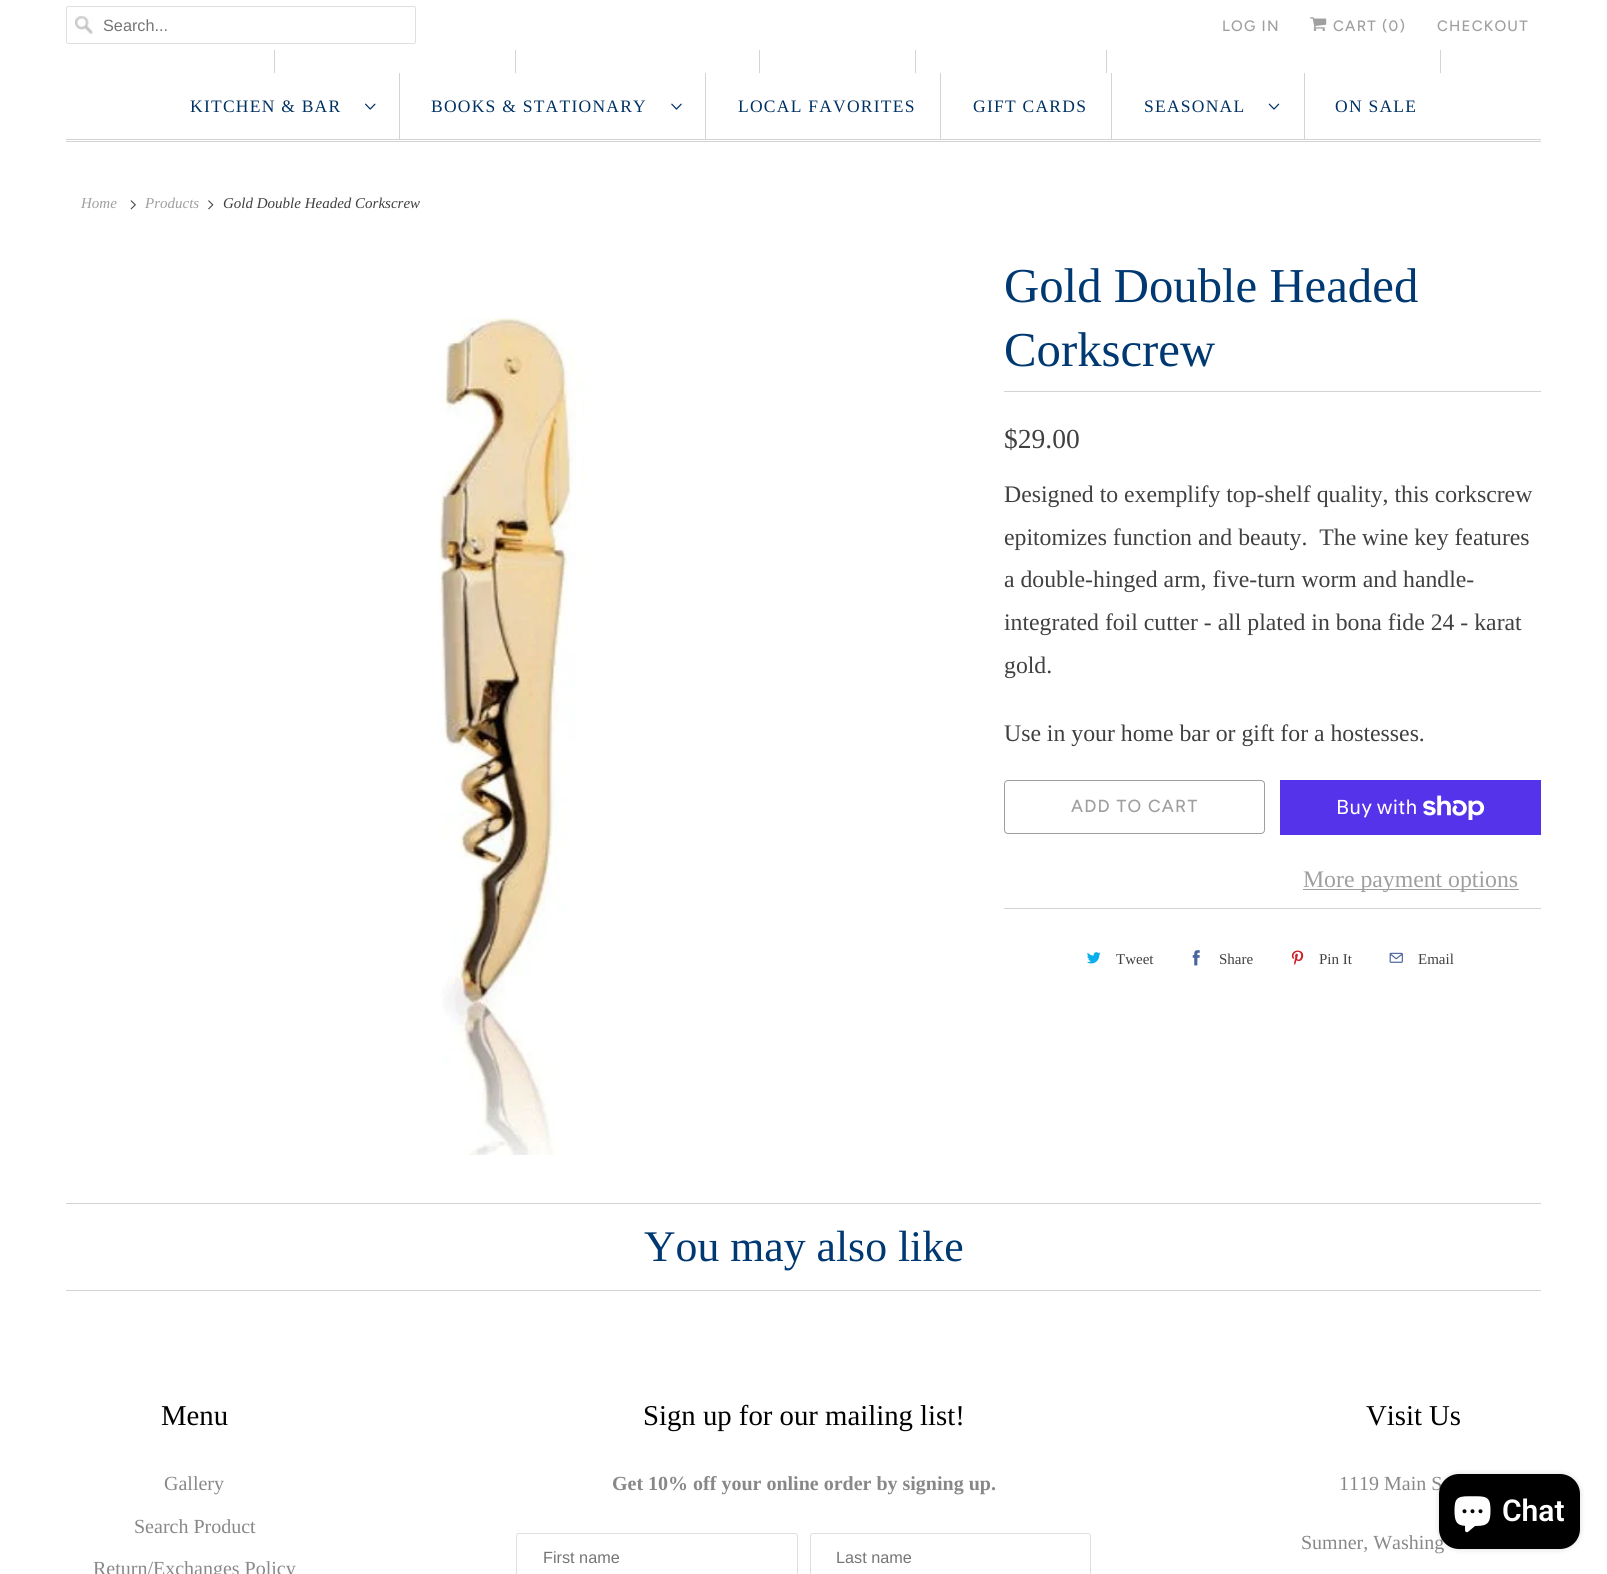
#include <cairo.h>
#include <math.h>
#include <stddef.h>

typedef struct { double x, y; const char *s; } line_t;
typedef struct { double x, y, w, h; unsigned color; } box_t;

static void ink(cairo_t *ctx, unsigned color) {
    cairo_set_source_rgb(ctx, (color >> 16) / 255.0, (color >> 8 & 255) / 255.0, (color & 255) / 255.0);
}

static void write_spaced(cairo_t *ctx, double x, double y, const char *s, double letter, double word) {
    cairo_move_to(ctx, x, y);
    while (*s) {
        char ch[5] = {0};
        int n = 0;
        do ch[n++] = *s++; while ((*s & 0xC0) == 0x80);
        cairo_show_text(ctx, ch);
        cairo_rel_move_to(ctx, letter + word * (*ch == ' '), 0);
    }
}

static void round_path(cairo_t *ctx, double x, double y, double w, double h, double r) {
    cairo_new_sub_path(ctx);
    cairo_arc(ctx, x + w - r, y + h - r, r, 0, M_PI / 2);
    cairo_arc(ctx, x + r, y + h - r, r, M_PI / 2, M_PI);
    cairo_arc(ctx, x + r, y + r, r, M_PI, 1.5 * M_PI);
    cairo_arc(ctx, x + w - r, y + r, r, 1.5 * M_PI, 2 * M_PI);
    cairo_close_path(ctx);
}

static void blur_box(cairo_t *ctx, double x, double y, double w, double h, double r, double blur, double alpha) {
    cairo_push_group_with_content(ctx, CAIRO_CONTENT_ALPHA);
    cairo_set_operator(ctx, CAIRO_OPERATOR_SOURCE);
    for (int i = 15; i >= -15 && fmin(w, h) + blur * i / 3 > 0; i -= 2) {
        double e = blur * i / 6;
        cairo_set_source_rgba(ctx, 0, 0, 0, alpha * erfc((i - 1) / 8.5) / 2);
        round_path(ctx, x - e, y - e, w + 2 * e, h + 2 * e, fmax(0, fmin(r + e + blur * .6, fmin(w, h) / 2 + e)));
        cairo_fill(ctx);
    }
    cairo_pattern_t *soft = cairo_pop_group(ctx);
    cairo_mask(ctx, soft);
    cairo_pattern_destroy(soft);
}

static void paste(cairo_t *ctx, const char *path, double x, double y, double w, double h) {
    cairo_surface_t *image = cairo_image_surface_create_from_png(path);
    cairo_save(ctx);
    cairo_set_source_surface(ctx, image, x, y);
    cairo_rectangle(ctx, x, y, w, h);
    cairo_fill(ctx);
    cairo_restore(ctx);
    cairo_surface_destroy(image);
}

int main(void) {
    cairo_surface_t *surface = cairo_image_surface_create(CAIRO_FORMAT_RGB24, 1607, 1574);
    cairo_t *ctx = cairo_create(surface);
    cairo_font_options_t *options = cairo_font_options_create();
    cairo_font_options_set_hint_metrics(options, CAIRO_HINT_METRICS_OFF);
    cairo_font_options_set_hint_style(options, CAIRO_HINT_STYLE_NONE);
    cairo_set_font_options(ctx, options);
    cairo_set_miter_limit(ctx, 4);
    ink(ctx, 0xFFFFFF);
    cairo_paint(ctx);
    paste(ctx, "media/1.png", 75, 16, 18, 18);
    round_path(ctx, 66.5, 6.5, 349, 37, 2);
    ink(ctx, 0xDFDFDF);
    cairo_set_line_width(ctx, 1);
    cairo_stroke(ctx);
    cairo_select_font_face(ctx, "Liberation Sans", CAIRO_FONT_SLANT_NORMAL, CAIRO_FONT_WEIGHT_NORMAL);
    cairo_set_font_size(ctx, 16.25);
    ink(ctx, 0x757575);
    cairo_move_to(ctx, 103, 31);
    cairo_show_text(ctx, "Search...");
    cairo_select_font_face(ctx, "Figtree Medium", CAIRO_FONT_SLANT_NORMAL, CAIRO_FONT_WEIGHT_NORMAL);
    cairo_set_font_size(ctx, 15);
    ink(ctx, 0x9F9F9F);
    write_spaced(ctx, 1222, 31, "LOG IN", 1.25, 0);
    paste(ctx, "media/2.png", 1310, 17, 17, 14);
    write_spaced(ctx, 1333, 31, "CART (0)", 1.25, 0);
    write_spaced(ctx, 1437, 31, "CHECKOUT", 1.25, 0);
    {
        static const box_t items[] = {
            {66, 139, 1475, 1, 0xD3D3D3},
            {66, 141, 1475, 1, 0xD3D3D3},
            {274, 50, 1, 23, 0xD3D3D3},
            {515, 50, 1, 23, 0xD3D3D3},
            {759, 50, 1, 23, 0xD3D3D3},
            {915, 50, 1, 23, 0xD3D3D3},
            {1106, 50, 1, 23, 0xD3D3D3},
            {1440, 50, 1, 23, 0xD3D3D3},
            {399, 73, 1, 66, 0xD3D3D3},
        };
        for (size_t i = 0; i < sizeof items / sizeof *items; i++) {
            ink(ctx, items[i].color);
            cairo_rectangle(ctx, items[i].x, items[i].y, items[i].w, items[i].h);
            cairo_fill(ctx);
        }
    }
    cairo_select_font_face(ctx, "Liberation Serif", CAIRO_FONT_SLANT_NORMAL, CAIRO_FONT_WEIGHT_NORMAL);
    cairo_set_font_size(ctx, 17.5);
    ink(ctx, 0x003163);
    write_spaced(ctx, 190, 112, "KITCHEN & BAR", 1.25, 0);
    paste(ctx, "media/3.png", 365, 103, 11, 7);
    ink(ctx, 0xD3D3D3);
    cairo_rectangle(ctx, 705, 73, 1, 66);
    cairo_fill(ctx);
    ink(ctx, 0x003163);
    write_spaced(ctx, 431, 112, "BOOKS & STATIONARY", 1.25, 0);
    paste(ctx, "media/4.png", 671, 103, 11, 7);
    ink(ctx, 0xD3D3D3);
    cairo_rectangle(ctx, 940, 73, 1, 66);
    cairo_fill(ctx);
    ink(ctx, 0x003163);
    write_spaced(ctx, 738, 112, "LOCAL FAVORITES", 1.25, 0);
    ink(ctx, 0xD3D3D3);
    cairo_rectangle(ctx, 1111, 73, 1, 66);
    cairo_fill(ctx);
    ink(ctx, 0x003163);
    write_spaced(ctx, 973, 112, "GIFT CARDS", 1.25, 0);
    ink(ctx, 0xD3D3D3);
    cairo_rectangle(ctx, 1304, 73, 1, 66);
    cairo_fill(ctx);
    ink(ctx, 0x003163);
    write_spaced(ctx, 1144, 112, "SEASONAL", 1.25, 0);
    paste(ctx, "media/5.png", 1268, 103, 12, 7);
    write_spaced(ctx, 1335, 112, "ON SALE", 1.25, 0);
    cairo_select_font_face(ctx, "Liberation Serif", CAIRO_FONT_SLANT_ITALIC, CAIRO_FONT_WEIGHT_NORMAL);
    cairo_set_font_size(ctx, 15);
    ink(ctx, 0x9F9F9F);
    cairo_move_to(ctx, 81, 208);
    cairo_show_text(ctx, "Home");
    paste(ctx, "media/6.png", 130, 200, 6, 10);
    cairo_move_to(ctx, 145, 208);
    cairo_show_text(ctx, "Products");
    paste(ctx, "media/7.png", 208, 200, 6, 10);
    ink(ctx, 0x404040);
    cairo_move_to(ctx, 223, 208);
    cairo_show_text(ctx, "Gold Double Headed Corkscrew");
    paste(ctx, "media/8.png", 438, 318, 147, 837);
    ink(ctx, 0xD3D3D3);
    cairo_rectangle(ctx, 1004, 391, 537, 1);
    cairo_fill(ctx);
    cairo_select_font_face(ctx, "Liberation Serif", CAIRO_FONT_SLANT_NORMAL, CAIRO_FONT_WEIGHT_NORMAL);
    cairo_set_font_size(ctx, 48.75);
    ink(ctx, 0x003872);
    cairo_move_to(ctx, 1004, 302);
    cairo_show_text(ctx, "Gold Double Headed");
    cairo_move_to(ctx, 1004, 366);
    cairo_show_text(ctx, "Corkscrew");
    cairo_set_font_size(ctx, 27.5);
    ink(ctx, 0x404040);
    cairo_move_to(ctx, 1004, 448);
    cairo_show_text(ctx, "$29.00");
    cairo_set_font_size(ctx, 23.75);
    {
        static const line_t items[] = {
            {1004, 502, "Designed to exemplify top-shelf quality, this corkscrew"},
            {1004, 545, "epitomizes function and beauty.  The wine key features"},
            {1004, 587, "a double-hinged arm, five-turn worm and handle-"},
            {1004, 630, "integrated foil cutter - all plated in bona fide 24 - karat"},
            {1004, 673, "gold."},
            {1004, 741, "Use in your home bar or gift for a hostesses."},
        };
        for (size_t i = 0; i < sizeof items / sizeof *items; i++) {
            cairo_move_to(ctx, items[i].x, items[i].y);
            cairo_show_text(ctx, items[i].s);
        }
    }
    round_path(ctx, 1004.5, 780.5, 260, 53, 3.5);
    ink(ctx, 0x9F9F9F);
    cairo_stroke(ctx);
    cairo_select_font_face(ctx, "Figtree Medium", CAIRO_FONT_SLANT_NORMAL, CAIRO_FONT_WEIGHT_NORMAL);
    cairo_set_font_size(ctx, 17.5);
    write_spaced(ctx, 1071, 812, "ADD TO CART", 1.25, 0);
    ink(ctx, 0x5433EB);
    cairo_rectangle(ctx, 1280, 780, 261, 55);
    cairo_fill(ctx);
    cairo_select_font_face(ctx, "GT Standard", CAIRO_FONT_SLANT_NORMAL, CAIRO_FONT_WEIGHT_NORMAL);
    cairo_set_font_size(ctx, 20);
    ink(ctx, 0xFFFFFF);
    cairo_move_to(ctx, 1336, 814);
    cairo_show_text(ctx, "Buy with");
    paste(ctx, "media/9.png", 1423, 795, 62, 25);
    ink(ctx, 0x9F9F9F);
    cairo_rectangle(ctx, 1303, 889, 216, 1);
    cairo_fill(ctx);
    cairo_select_font_face(ctx, "Liberation Serif", CAIRO_FONT_SLANT_NORMAL, CAIRO_FONT_WEIGHT_NORMAL);
    cairo_set_font_size(ctx, 23.75);
    cairo_move_to(ctx, 1303, 887);
    cairo_show_text(ctx, "More payment options");
    ink(ctx, 0xD3D3D3);
    cairo_rectangle(ctx, 1004, 908, 537, 1);
    cairo_fill(ctx);
    paste(ctx, "media/10.png", 1087, 952, 14, 12);
    cairo_set_font_size(ctx, 15);
    ink(ctx, 0x404040);
    cairo_move_to(ctx, 1116, 964);
    cairo_show_text(ctx, "Tweet");
    paste(ctx, "media/11.png", 1192, 950, 8, 16);
    cairo_move_to(ctx, 1219, 964);
    cairo_show_text(ctx, "Share");
    paste(ctx, "media/12.png", 1291, 950, 13, 15);
    cairo_move_to(ctx, 1319, 964);
    cairo_show_text(ctx, "Pin It");
    paste(ctx, "media/13.png", 1389, 952, 14, 11);
    cairo_move_to(ctx, 1418, 964);
    cairo_show_text(ctx, "Email");
    ink(ctx, 0xD3D3D3);
    cairo_rectangle(ctx, 66, 1203, 1475, 1);
    cairo_fill(ctx);
    cairo_rectangle(ctx, 66, 1290, 1475, 1);
    cairo_fill(ctx);
    cairo_set_font_size(ctx, 43.75);
    ink(ctx, 0x003872);
    cairo_move_to(ctx, 644, 1261);
    cairo_show_text(ctx, "You may also like");
    cairo_set_font_size(ctx, 28.75);
    ink(ctx, 0x000000);
    cairo_move_to(ctx, 161, 1425);
    cairo_show_text(ctx, "Menu");
    cairo_set_font_size(ctx, 20);
    ink(ctx, 0x888888);
    {
        static const line_t items[] = {
            {164, 1490, "Gallery"},
            {134, 1533, "Search Product"},
            {93, 1575, "Return/Exchanges Policy"},
        };
        for (size_t i = 0; i < sizeof items / sizeof *items; i++) {
            cairo_move_to(ctx, items[i].x, items[i].y);
            cairo_show_text(ctx, items[i].s);
        }
    }
    cairo_set_font_size(ctx, 28.75);
    ink(ctx, 0x000000);
    cairo_move_to(ctx, 643, 1425);
    cairo_show_text(ctx, "Sign up for our mailing list!");
    cairo_select_font_face(ctx, "Liberation Serif", CAIRO_FONT_SLANT_NORMAL, CAIRO_FONT_WEIGHT_BOLD);
    cairo_set_font_size(ctx, 20);
    ink(ctx, 0x888888);
    cairo_move_to(ctx, 612, 1490);
    cairo_show_text(ctx, "Get 10% off your online order by signing up.");
    round_path(ctx, 516.5, 1533.5, 281, 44, 2);
    ink(ctx, 0xDFDFDF);
    cairo_stroke(ctx);
    cairo_select_font_face(ctx, "Liberation Sans", CAIRO_FONT_SLANT_NORMAL, CAIRO_FONT_WEIGHT_NORMAL);
    cairo_set_font_size(ctx, 16.25);
    ink(ctx, 0x757575);
    cairo_move_to(ctx, 543, 1563);
    cairo_show_text(ctx, "First name");
    round_path(ctx, 810.5, 1533.5, 280, 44, 2);
    ink(ctx, 0xDFDFDF);
    cairo_stroke(ctx);
    ink(ctx, 0x757575);
    cairo_move_to(ctx, 836, 1563);
    cairo_show_text(ctx, "Last name");
    cairo_select_font_face(ctx, "Liberation Serif", CAIRO_FONT_SLANT_NORMAL, CAIRO_FONT_WEIGHT_NORMAL);
    cairo_set_font_size(ctx, 28.75);
    ink(ctx, 0x000000);
    cairo_move_to(ctx, 1366, 1425);
    cairo_show_text(ctx, "Visit Us");
    cairo_set_font_size(ctx, 20);
    ink(ctx, 0x888888);
    cairo_move_to(ctx, 1339, 1490);
    cairo_show_text(ctx, "1119 Main S");
    cairo_move_to(ctx, 1301, 1549);
    cairo_show_text(ctx, "Sumner, Washing");
    ink(ctx, 0x000000);
    blur_box(ctx, 1439, 1474, 141, 75, 20, 3, 0.15);
    ink(ctx, 0x000000);
    round_path(ctx, 1439, 1474, 141, 75, 20);
    cairo_fill(ctx);
    paste(ctx, "media/14.png", 1454, 1496, 37, 37);
    cairo_select_font_face(ctx, "Roboto SemiBold", CAIRO_FONT_SLANT_NORMAL, CAIRO_FONT_WEIGHT_NORMAL);
    cairo_set_font_size(ctx, 30);
    ink(ctx, 0xFFFFFF);
    cairo_move_to(ctx, 1502, 1521);
    cairo_show_text(ctx, "Chat");
    cairo_surface_write_to_png(surface, "image.png");
    cairo_font_options_destroy(options);
    cairo_destroy(ctx);
    cairo_surface_destroy(surface);
    return 0;
}
